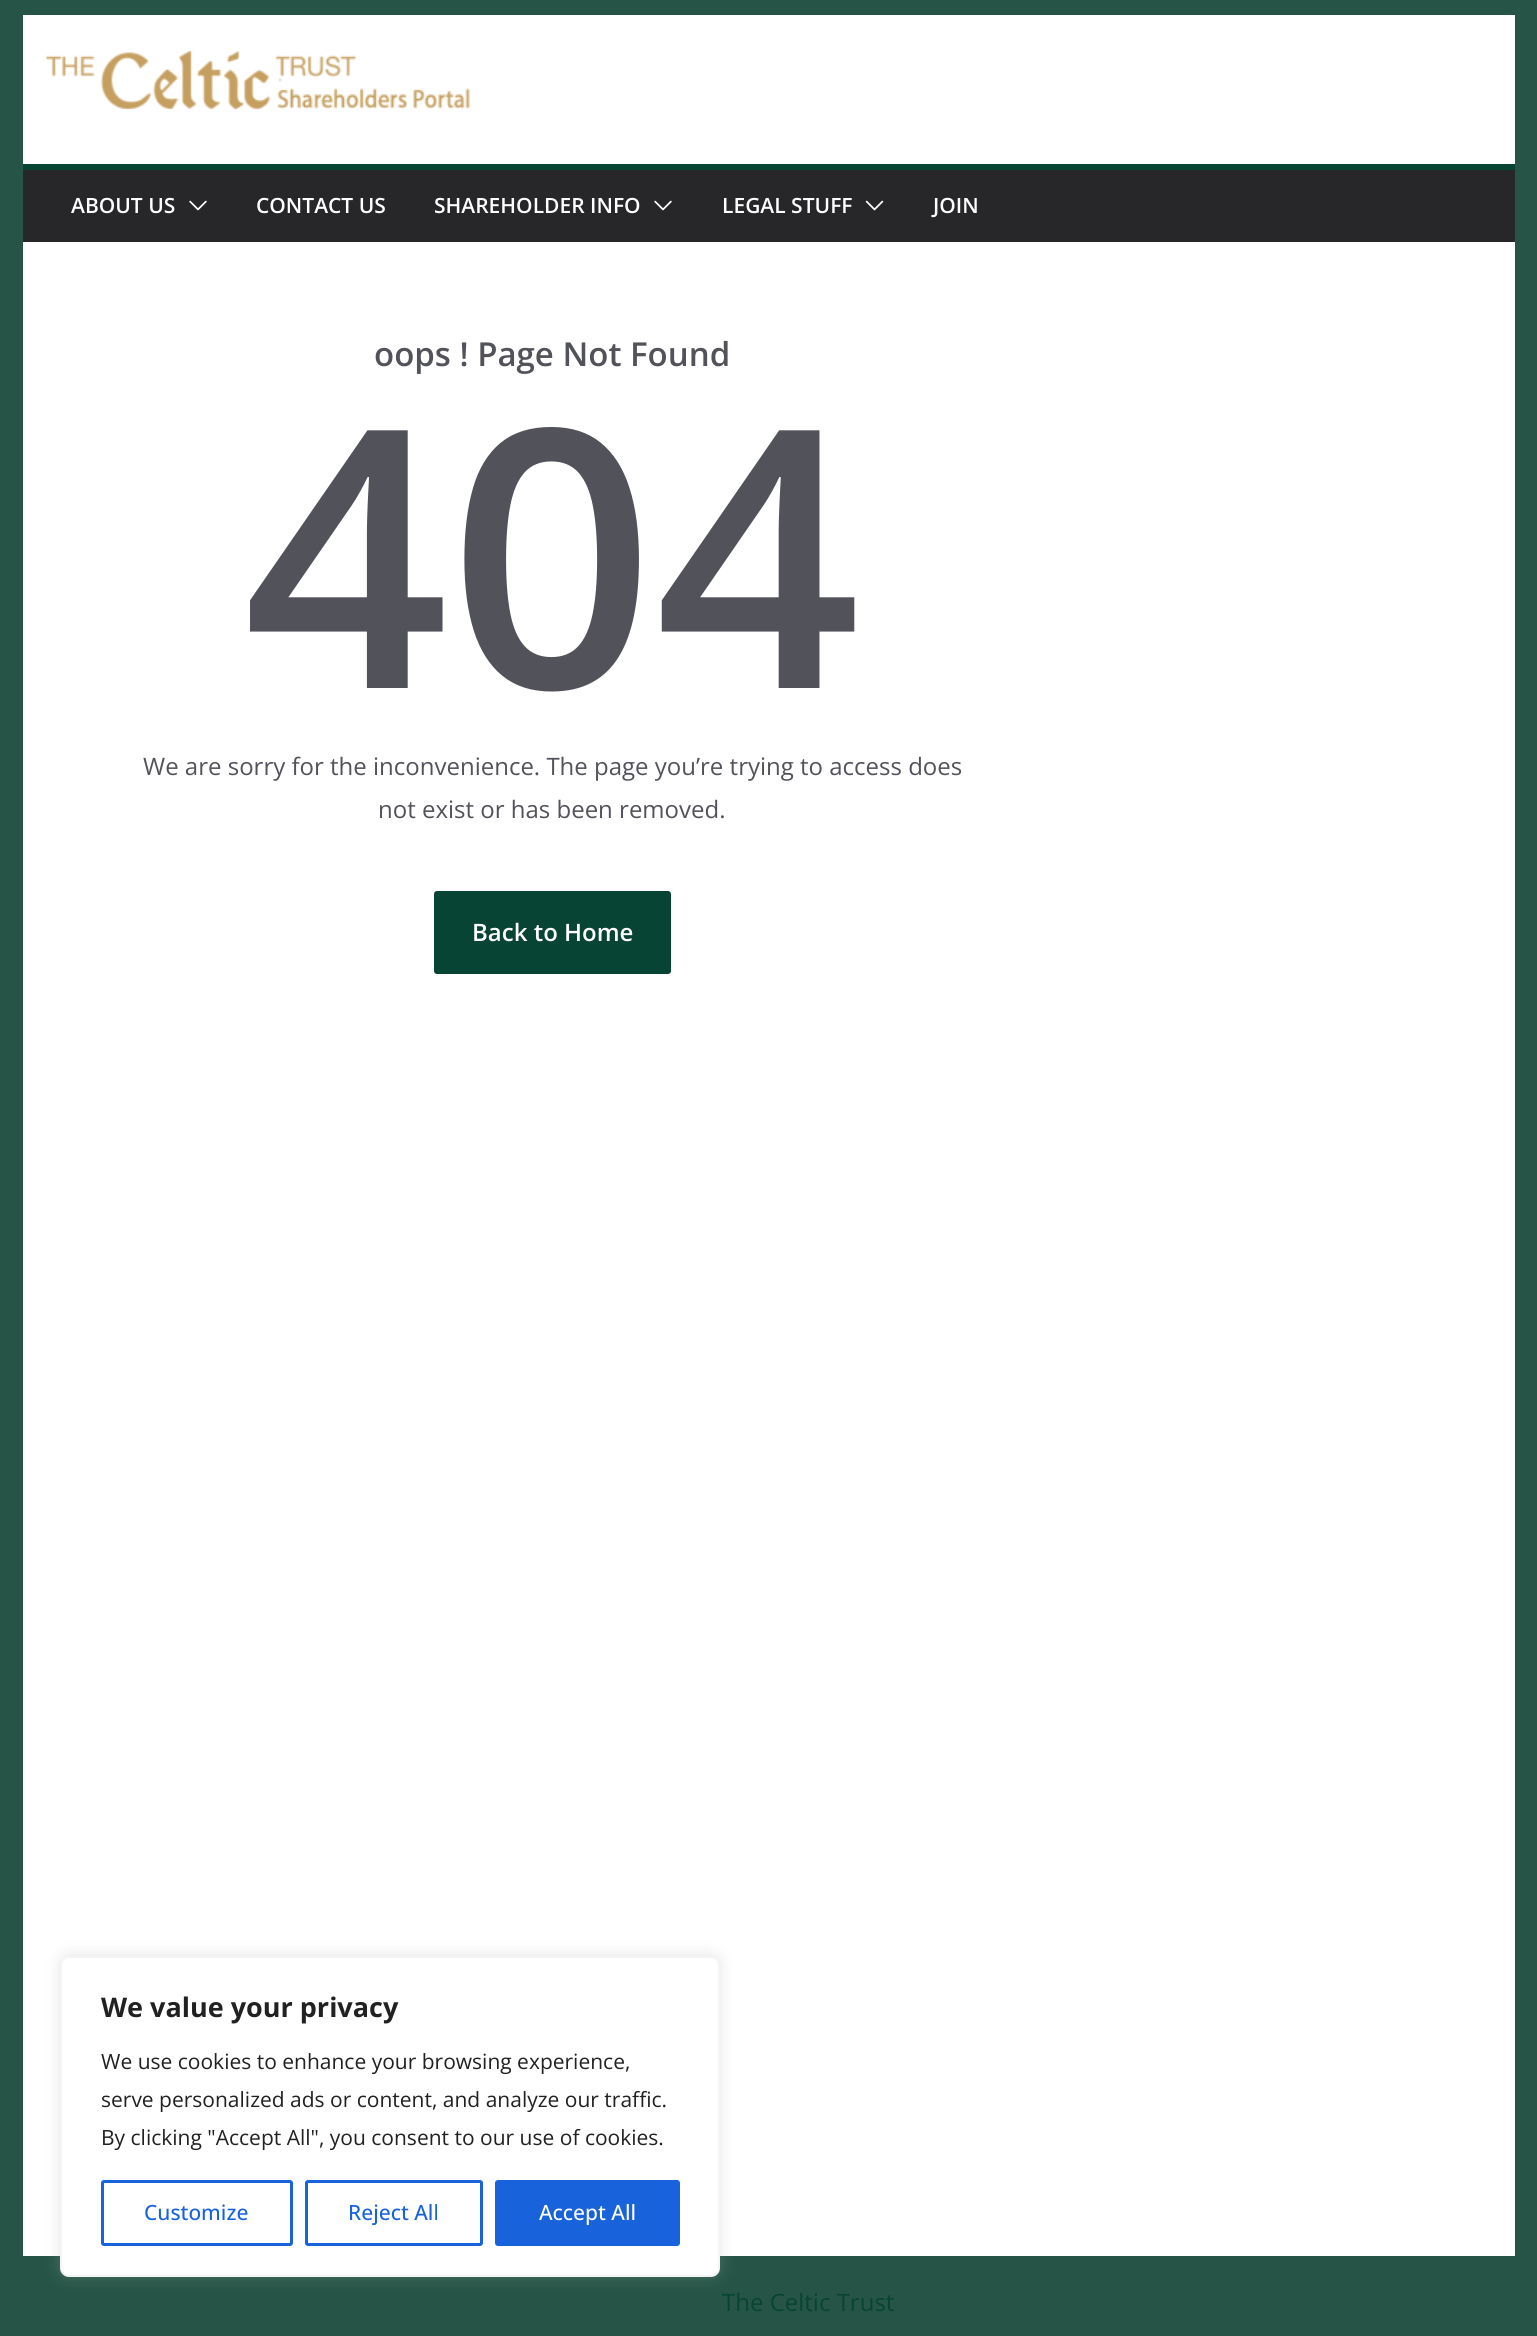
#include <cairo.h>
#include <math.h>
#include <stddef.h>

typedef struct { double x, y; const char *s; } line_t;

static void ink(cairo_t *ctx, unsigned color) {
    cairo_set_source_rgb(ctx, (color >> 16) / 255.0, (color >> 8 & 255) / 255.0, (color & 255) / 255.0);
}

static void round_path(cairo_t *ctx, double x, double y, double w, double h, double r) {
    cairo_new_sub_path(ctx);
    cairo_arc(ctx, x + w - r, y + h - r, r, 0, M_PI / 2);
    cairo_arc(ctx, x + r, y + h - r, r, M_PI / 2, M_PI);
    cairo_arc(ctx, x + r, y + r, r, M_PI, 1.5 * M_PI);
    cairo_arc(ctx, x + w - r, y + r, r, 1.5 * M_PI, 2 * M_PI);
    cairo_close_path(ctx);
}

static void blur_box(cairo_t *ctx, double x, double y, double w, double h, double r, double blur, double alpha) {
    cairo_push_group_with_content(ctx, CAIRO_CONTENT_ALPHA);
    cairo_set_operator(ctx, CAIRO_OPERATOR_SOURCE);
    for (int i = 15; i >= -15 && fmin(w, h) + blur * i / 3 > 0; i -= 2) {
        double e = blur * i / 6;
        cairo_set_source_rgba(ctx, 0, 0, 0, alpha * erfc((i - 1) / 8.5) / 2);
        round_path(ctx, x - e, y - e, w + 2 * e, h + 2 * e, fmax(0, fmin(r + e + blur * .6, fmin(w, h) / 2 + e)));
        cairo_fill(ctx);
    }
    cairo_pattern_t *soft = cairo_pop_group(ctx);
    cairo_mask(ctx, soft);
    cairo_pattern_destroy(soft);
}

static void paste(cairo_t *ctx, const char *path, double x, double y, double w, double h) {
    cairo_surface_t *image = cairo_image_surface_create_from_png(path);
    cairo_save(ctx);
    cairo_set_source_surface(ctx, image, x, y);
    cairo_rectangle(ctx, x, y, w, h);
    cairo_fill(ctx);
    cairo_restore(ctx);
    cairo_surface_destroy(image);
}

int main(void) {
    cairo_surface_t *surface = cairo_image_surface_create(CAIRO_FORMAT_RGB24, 1537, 2336);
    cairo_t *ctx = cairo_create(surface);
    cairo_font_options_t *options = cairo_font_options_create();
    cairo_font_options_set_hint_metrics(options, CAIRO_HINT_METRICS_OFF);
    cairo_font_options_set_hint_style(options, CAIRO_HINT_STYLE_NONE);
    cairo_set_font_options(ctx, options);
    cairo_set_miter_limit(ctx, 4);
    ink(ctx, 0x265547);
    cairo_paint(ctx);
    ink(ctx, 0xFFFFFF);
    cairo_rectangle(ctx, 23, 15, 1492, 149);
    cairo_fill(ctx);
    paste(ctx, "media/1.png", 46, 51, 425, 60);
    ink(ctx, 0x27272A);
    cairo_rectangle(ctx, 23, 170, 1492, 72);
    cairo_fill(ctx);
    ink(ctx, 0x074433);
    cairo_rectangle(ctx, 23, 164, 1492, 6);
    cairo_fill(ctx);
    cairo_select_font_face(ctx, "Open Sans SemiBold", CAIRO_FONT_SLANT_NORMAL, CAIRO_FONT_WEIGHT_NORMAL);
    cairo_set_font_size(ctx, 21);
    ink(ctx, 0xFFFFFF);
    cairo_move_to(ctx, 71, 213);
    cairo_show_text(ctx, "ABOUT US");
    paste(ctx, "media/2.png", 189, 200, 18, 11);
    cairo_move_to(ctx, 256, 213);
    cairo_show_text(ctx, "CONTACT US");
    cairo_move_to(ctx, 434, 213);
    cairo_show_text(ctx, "SHAREHOLDER INFO");
    paste(ctx, "media/2.png", 654, 200, 18, 11);
    cairo_move_to(ctx, 722, 213);
    cairo_show_text(ctx, "LEGAL STUFF");
    paste(ctx, "media/3.png", 865, 200, 19, 11);
    cairo_move_to(ctx, 933, 213);
    cairo_show_text(ctx, "JOIN");
    cairo_rectangle(ctx, 23, 242, 1492, 2014);
    cairo_fill(ctx);
    cairo_set_font_size(ctx, 33);
    ink(ctx, 0x52525B);
    cairo_move_to(ctx, 374, 366);
    cairo_show_text(ctx, "oops ! Page Not Found");
    cairo_set_font_size(ctx, 360);
    cairo_move_to(ctx, 243, 688);
    cairo_show_text(ctx, "404");
    cairo_select_font_face(ctx, "Open Sans", CAIRO_FONT_SLANT_NORMAL, CAIRO_FONT_WEIGHT_NORMAL);
    cairo_set_font_size(ctx, 24);
    cairo_move_to(ctx, 143, 775);
    cairo_show_text(ctx, "We are sorry for the inconvenience. The page you’re trying to access does");
    cairo_move_to(ctx, 378, 818);
    cairo_show_text(ctx, "not exist or has been removed.");
    ink(ctx, 0x074433);
    round_path(ctx, 435, 892, 235, 81, 2);
    cairo_fill_preserve(ctx);
    cairo_stroke(ctx);
    cairo_select_font_face(ctx, "Open Sans SemiBold", CAIRO_FONT_SLANT_NORMAL, CAIRO_FONT_WEIGHT_NORMAL);
    ink(ctx, 0xFFFFFF);
    cairo_move_to(ctx, 472, 941);
    cairo_show_text(ctx, "Back to Home");
    cairo_select_font_face(ctx, "Open Sans", CAIRO_FONT_SLANT_NORMAL, CAIRO_FONT_WEIGHT_NORMAL);
    ink(ctx, 0x074433);
    cairo_move_to(ctx, 722, 2311);
    cairo_show_text(ctx, "The Celtic Trust");
    ink(ctx, 0xACABAB);
    blur_box(ctx, 60, 1955, 660, 321, 9, 7.5, 0.3);
    ink(ctx, 0xFFFFFF);
    round_path(ctx, 61, 1957, 658, 319, 8);
    cairo_fill_preserve(ctx);
    ink(ctx, 0xF4F4F4);
    cairo_stroke(ctx);
    cairo_select_font_face(ctx, "Open Sans", CAIRO_FONT_SLANT_NORMAL, CAIRO_FONT_WEIGHT_BOLD);
    cairo_set_font_size(ctx, 27);
    ink(ctx, 0x212121);
    cairo_move_to(ctx, 101, 2017);
    cairo_show_text(ctx, "We value your privacy");
    cairo_select_font_face(ctx, "Open Sans", CAIRO_FONT_SLANT_NORMAL, CAIRO_FONT_WEIGHT_NORMAL);
    cairo_set_font_size(ctx, 21);
    {
        static const line_t items[] = {
            {101, 2069, "We use cookies to enhance your browsing experience,"},
            {101, 2107, "serve personalized ads or content, and analyze our traffic."},
            {101, 2145, "By clicking \"Accept All\", you consent to our use of cookies."},
        };
        for (size_t i = 0; i < sizeof items / sizeof *items; i++) {
            cairo_move_to(ctx, items[i].x, items[i].y);
            cairo_show_text(ctx, items[i].s);
        }
    }
    round_path(ctx, 102.5, 2181.5, 189, 63, 1.5);
    ink(ctx, 0x1863DC);
    cairo_set_line_width(ctx, 3);
    cairo_stroke(ctx);
    cairo_select_font_face(ctx, "Open Sans Medium", CAIRO_FONT_SLANT_NORMAL, CAIRO_FONT_WEIGHT_NORMAL);
    cairo_move_to(ctx, 144, 2220);
    cairo_show_text(ctx, "Customize");
    round_path(ctx, 306.5, 2181.5, 175, 63, 1.5);
    cairo_stroke(ctx);
    cairo_move_to(ctx, 348, 2220);
    cairo_show_text(ctx, "Reject All");
    round_path(ctx, 496.5, 2181.5, 182, 63, 1.5);
    cairo_fill_preserve(ctx);
    cairo_stroke(ctx);
    ink(ctx, 0xFFFFFF);
    cairo_move_to(ctx, 539, 2220);
    cairo_show_text(ctx, "Accept All");
    cairo_surface_write_to_png(surface, "image.png");
    cairo_font_options_destroy(options);
    cairo_destroy(ctx);
    cairo_surface_destroy(surface);
    return 0;
}
